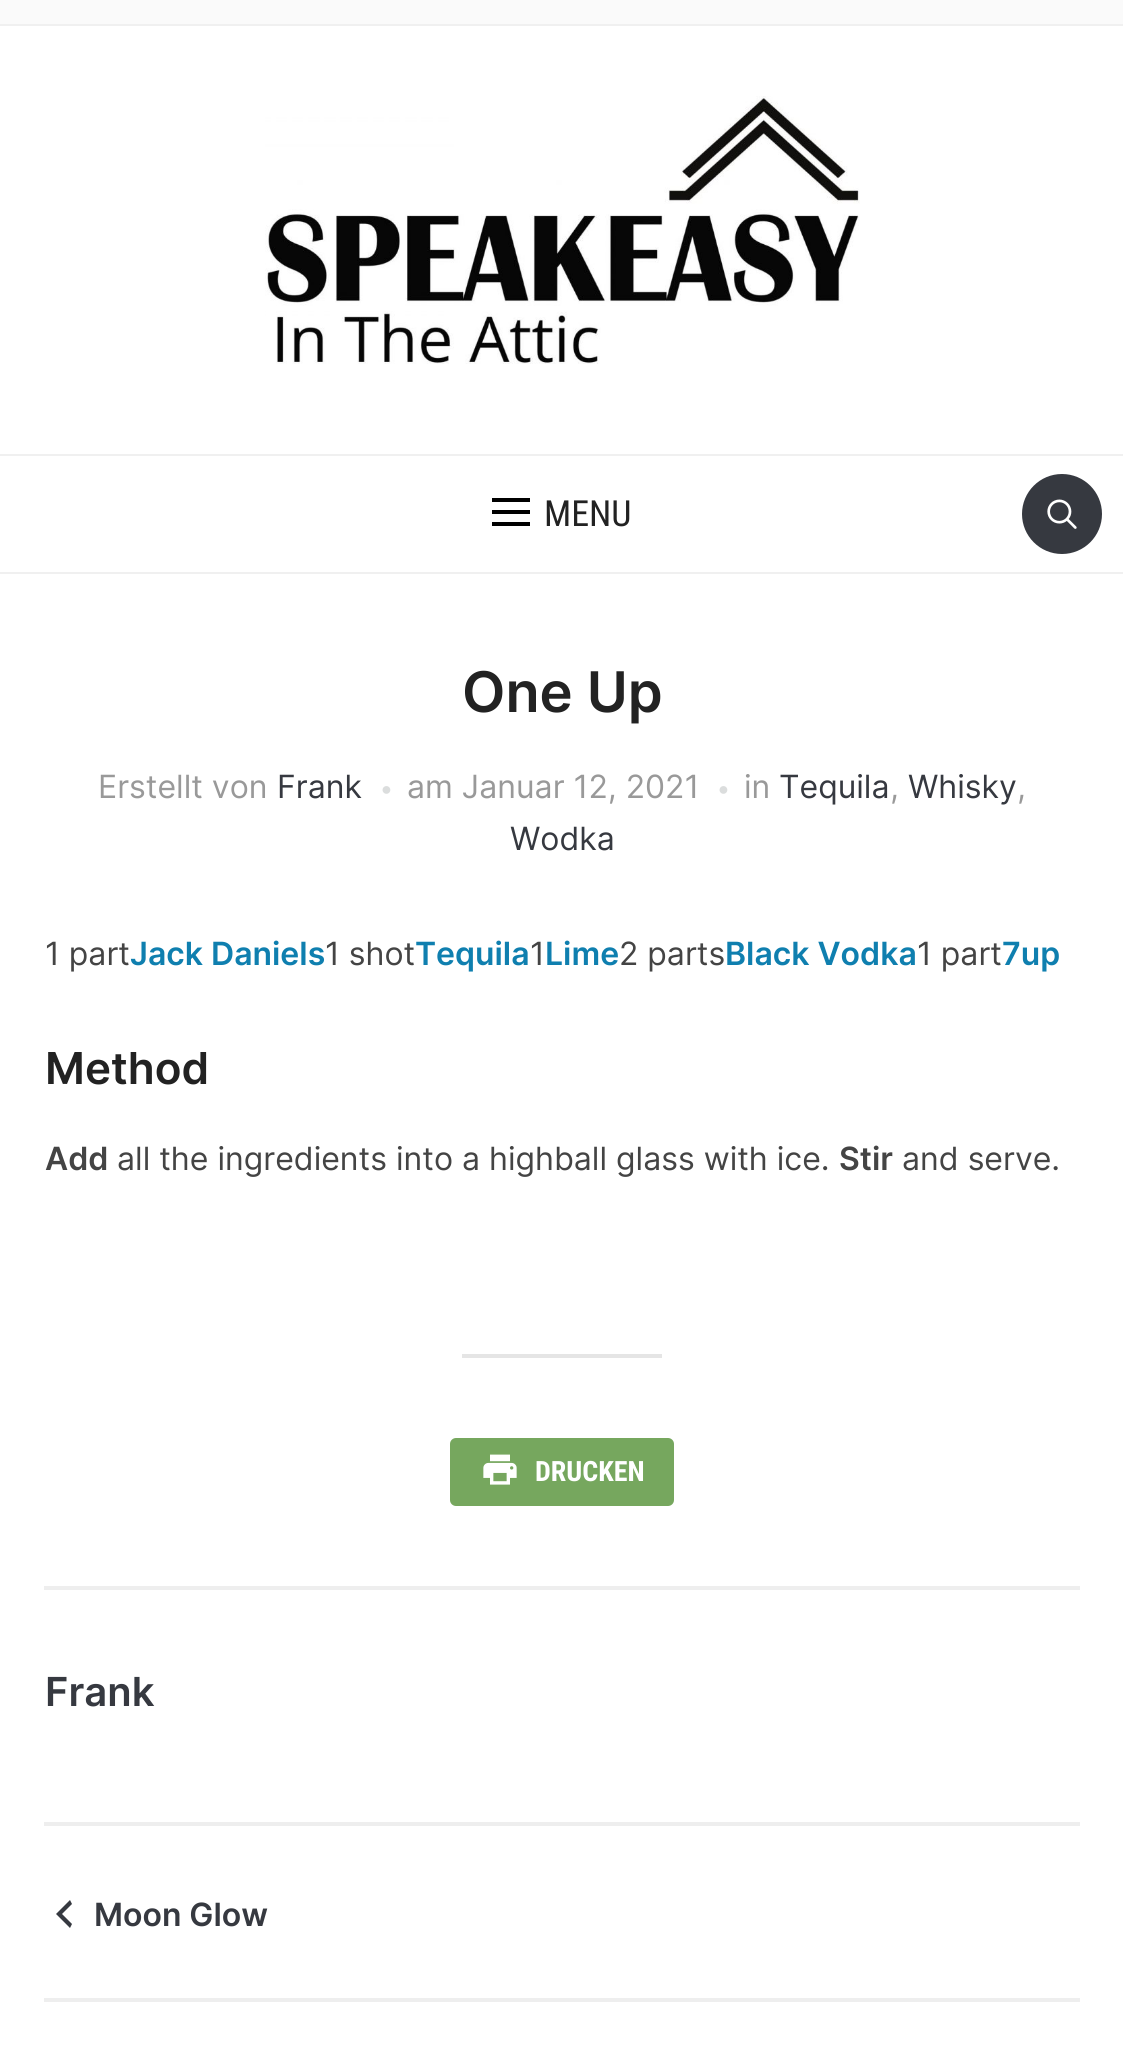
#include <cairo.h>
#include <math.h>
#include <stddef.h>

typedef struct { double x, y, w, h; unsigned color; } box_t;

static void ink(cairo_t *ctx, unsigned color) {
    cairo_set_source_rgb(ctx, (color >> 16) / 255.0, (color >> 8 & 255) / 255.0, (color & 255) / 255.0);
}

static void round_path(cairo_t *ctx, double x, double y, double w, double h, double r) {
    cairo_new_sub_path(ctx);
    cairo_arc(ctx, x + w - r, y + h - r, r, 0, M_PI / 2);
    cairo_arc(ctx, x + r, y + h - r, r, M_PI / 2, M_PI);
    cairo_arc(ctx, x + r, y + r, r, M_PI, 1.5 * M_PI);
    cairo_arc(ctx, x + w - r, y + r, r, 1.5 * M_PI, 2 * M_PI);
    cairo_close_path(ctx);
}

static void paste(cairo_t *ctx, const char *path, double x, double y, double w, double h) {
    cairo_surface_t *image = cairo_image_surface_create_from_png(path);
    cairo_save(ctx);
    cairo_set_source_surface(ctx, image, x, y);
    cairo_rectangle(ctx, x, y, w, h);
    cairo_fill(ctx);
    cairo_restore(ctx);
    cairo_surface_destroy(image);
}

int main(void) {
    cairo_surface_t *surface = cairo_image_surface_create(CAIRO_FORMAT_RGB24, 1123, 2057);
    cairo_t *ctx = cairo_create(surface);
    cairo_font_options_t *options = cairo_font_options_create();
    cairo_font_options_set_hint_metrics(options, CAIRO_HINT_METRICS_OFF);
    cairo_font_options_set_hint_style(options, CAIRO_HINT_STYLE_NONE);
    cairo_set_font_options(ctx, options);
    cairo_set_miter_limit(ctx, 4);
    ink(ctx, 0xFFFFFF);
    cairo_paint(ctx);
    ink(ctx, 0xFAFAFA);
    cairo_rectangle(ctx, 0, 0, 1123, 24);
    cairo_fill(ctx);
    ink(ctx, 0xF0F0F0);
    cairo_rectangle(ctx, 0, 24, 1123, 2);
    cairo_fill(ctx);
    paste(ctx, "media/1.png", 265, 96, 595, 268);
    {
        static const box_t items[] = {
            {0, 454, 1123, 2, 0xF0F0F0},
            {0, 572, 1123, 2, 0xF0F0F0},
            {492, 498, 38, 4, 0x000000},
            {492, 510, 38, 4, 0x000000},
            {492, 522, 38, 4, 0x000000},
        };
        for (size_t i = 0; i < sizeof items / sizeof *items; i++) {
            ink(ctx, items[i].color);
            cairo_rectangle(ctx, items[i].x, items[i].y, items[i].w, items[i].h);
            cairo_fill(ctx);
        }
    }
    cairo_select_font_face(ctx, "Roboto Condensed", CAIRO_FONT_SLANT_NORMAL, CAIRO_FONT_WEIGHT_NORMAL);
    cairo_set_font_size(ctx, 36);
    ink(ctx, 0x222222);
    cairo_move_to(ctx, 544, 526);
    cairo_show_text(ctx, "MENU");
    ink(ctx, 0x363940);
    cairo_new_path(ctx);
    cairo_arc(ctx, 1062, 514, 40, 0, 2 * M_PI);
    cairo_fill(ctx);
    paste(ctx, "media/2.png", 1047, 499, 30, 30);
    cairo_select_font_face(ctx, "Inter SemiBold", CAIRO_FONT_SLANT_NORMAL, CAIRO_FONT_WEIGHT_NORMAL);
    cairo_set_font_size(ctx, 56);
    ink(ctx, 0x222222);
    cairo_move_to(ctx, 462, 712);
    cairo_show_text(ctx, "One Up");
    cairo_select_font_face(ctx, "Inter", CAIRO_FONT_SLANT_NORMAL, CAIRO_FONT_WEIGHT_NORMAL);
    cairo_set_font_size(ctx, 32);
    ink(ctx, 0x999999);
    cairo_move_to(ctx, 98, 798);
    cairo_show_text(ctx, "Erstellt von");
    ink(ctx, 0x363940);
    cairo_move_to(ctx, 277, 798);
    cairo_show_text(ctx, "Frank");
    cairo_select_font_face(ctx, "Liberation Sans", CAIRO_FONT_SLANT_NORMAL, CAIRO_FONT_WEIGHT_NORMAL);
    cairo_set_font_size(ctx, 18);
    ink(ctx, 0xDBDDDD);
    cairo_move_to(ctx, 381, 795);
    cairo_show_text(ctx, "●");
    cairo_select_font_face(ctx, "Inter", CAIRO_FONT_SLANT_NORMAL, CAIRO_FONT_WEIGHT_NORMAL);
    cairo_set_font_size(ctx, 32);
    ink(ctx, 0x999999);
    cairo_move_to(ctx, 407, 798);
    cairo_show_text(ctx, "am Januar 12, 2021");
    cairo_select_font_face(ctx, "Liberation Sans", CAIRO_FONT_SLANT_NORMAL, CAIRO_FONT_WEIGHT_NORMAL);
    cairo_set_font_size(ctx, 18);
    ink(ctx, 0xDBDDDD);
    cairo_move_to(ctx, 718, 795);
    cairo_show_text(ctx, "●");
    cairo_select_font_face(ctx, "Inter", CAIRO_FONT_SLANT_NORMAL, CAIRO_FONT_WEIGHT_NORMAL);
    cairo_set_font_size(ctx, 32);
    ink(ctx, 0x999999);
    cairo_move_to(ctx, 744, 798);
    cairo_show_text(ctx, "in");
    ink(ctx, 0x363940);
    cairo_move_to(ctx, 779, 798);
    cairo_show_text(ctx, "Tequila");
    cairo_move_to(ctx, 908, 798);
    cairo_show_text(ctx, "Whisky");
    ink(ctx, 0x999999);
    cairo_move_to(ctx, 890, 798);
    cairo_show_text(ctx, ",");
    cairo_move_to(ctx, 1017, 798);
    cairo_show_text(ctx, ",");
    ink(ctx, 0x363940);
    cairo_move_to(ctx, 510, 850);
    cairo_show_text(ctx, "Wodka");
    ink(ctx, 0x444444);
    cairo_move_to(ctx, 45, 965);
    cairo_show_text(ctx, "1 part");
    cairo_select_font_face(ctx, "Inter SemiBold", CAIRO_FONT_SLANT_NORMAL, CAIRO_FONT_WEIGHT_NORMAL);
    ink(ctx, 0x0F7FAF);
    cairo_move_to(ctx, 130, 965);
    cairo_show_text(ctx, "Jack Daniels");
    cairo_select_font_face(ctx, "Inter", CAIRO_FONT_SLANT_NORMAL, CAIRO_FONT_WEIGHT_NORMAL);
    ink(ctx, 0x444444);
    cairo_move_to(ctx, 325, 965);
    cairo_show_text(ctx, "1 shot");
    cairo_select_font_face(ctx, "Inter SemiBold", CAIRO_FONT_SLANT_NORMAL, CAIRO_FONT_WEIGHT_NORMAL);
    ink(ctx, 0x0F7FAF);
    cairo_move_to(ctx, 415, 965);
    cairo_show_text(ctx, "Tequila");
    cairo_select_font_face(ctx, "Inter", CAIRO_FONT_SLANT_NORMAL, CAIRO_FONT_WEIGHT_NORMAL);
    ink(ctx, 0x444444);
    cairo_move_to(ctx, 530, 965);
    cairo_show_text(ctx, "1");
    cairo_select_font_face(ctx, "Inter SemiBold", CAIRO_FONT_SLANT_NORMAL, CAIRO_FONT_WEIGHT_NORMAL);
    ink(ctx, 0x0F7FAF);
    cairo_move_to(ctx, 545, 965);
    cairo_show_text(ctx, "Lime");
    cairo_select_font_face(ctx, "Inter", CAIRO_FONT_SLANT_NORMAL, CAIRO_FONT_WEIGHT_NORMAL);
    ink(ctx, 0x444444);
    cairo_move_to(ctx, 619, 965);
    cairo_show_text(ctx, "2 parts");
    cairo_select_font_face(ctx, "Inter SemiBold", CAIRO_FONT_SLANT_NORMAL, CAIRO_FONT_WEIGHT_NORMAL);
    ink(ctx, 0x0F7FAF);
    cairo_move_to(ctx, 725, 965);
    cairo_show_text(ctx, "Black Vodka");
    cairo_select_font_face(ctx, "Inter", CAIRO_FONT_SLANT_NORMAL, CAIRO_FONT_WEIGHT_NORMAL);
    ink(ctx, 0x444444);
    cairo_move_to(ctx, 917, 965);
    cairo_show_text(ctx, "1 part");
    cairo_select_font_face(ctx, "Inter SemiBold", CAIRO_FONT_SLANT_NORMAL, CAIRO_FONT_WEIGHT_NORMAL);
    ink(ctx, 0x0F7FAF);
    cairo_move_to(ctx, 1002, 965);
    cairo_show_text(ctx, "7up");
    cairo_set_font_size(ctx, 44);
    ink(ctx, 0x222222);
    cairo_move_to(ctx, 45, 1084);
    cairo_show_text(ctx, "Method");
    cairo_set_font_size(ctx, 32);
    ink(ctx, 0x444444);
    cairo_move_to(ctx, 45, 1170);
    cairo_show_text(ctx, "Add");
    cairo_select_font_face(ctx, "Inter", CAIRO_FONT_SLANT_NORMAL, CAIRO_FONT_WEIGHT_NORMAL);
    cairo_move_to(ctx, 117, 1170);
    cairo_show_text(ctx, "all the ingredients into a highball glass with ice.");
    cairo_select_font_face(ctx, "Inter SemiBold", CAIRO_FONT_SLANT_NORMAL, CAIRO_FONT_WEIGHT_NORMAL);
    cairo_move_to(ctx, 839, 1170);
    cairo_show_text(ctx, "Stir");
    cairo_select_font_face(ctx, "Inter", CAIRO_FONT_SLANT_NORMAL, CAIRO_FONT_WEIGHT_NORMAL);
    cairo_move_to(ctx, 902, 1170);
    cairo_show_text(ctx, "and serve.");
    ink(ctx, 0xE5E5E5);
    cairo_rectangle(ctx, 462, 1354, 200, 4);
    cairo_fill(ctx);
    ink(ctx, 0x76A75E);
    round_path(ctx, 450, 1438, 224, 68, 6);
    cairo_fill(ctx);
    paste(ctx, "media/3.png", 483, 1454, 34, 31);
    cairo_select_font_face(ctx, "Roboto Condensed", CAIRO_FONT_SLANT_NORMAL, CAIRO_FONT_WEIGHT_BOLD);
    cairo_set_font_size(ctx, 28);
    ink(ctx, 0xFFFFFF);
    cairo_move_to(ctx, 535, 1481);
    cairo_show_text(ctx, "DRUCKEN");
    ink(ctx, 0xEEEEEE);
    cairo_rectangle(ctx, 44, 1586, 1036, 4);
    cairo_fill(ctx);
    cairo_select_font_face(ctx, "Inter SemiBold", CAIRO_FONT_SLANT_NORMAL, CAIRO_FONT_WEIGHT_NORMAL);
    cairo_set_font_size(ctx, 40);
    ink(ctx, 0x363940);
    cairo_move_to(ctx, 45, 1706);
    cairo_show_text(ctx, "Frank");
    ink(ctx, 0xEEEEEE);
    cairo_rectangle(ctx, 44, 1822, 1036, 4);
    cairo_fill(ctx);
    cairo_rectangle(ctx, 44, 1998, 1036, 4);
    cairo_fill(ctx);
    ink(ctx, 0x363940);
    cairo_new_path(ctx);
    cairo_move_to(ctx, 72, 1904);
    cairo_line_to(ctx, 62, 1914);
    cairo_line_to(ctx, 72, 1924);
    cairo_line_to(ctx, 70, 1928);
    cairo_line_to(ctx, 56, 1914);
    cairo_line_to(ctx, 70, 1900);
    cairo_close_path(ctx);
    cairo_fill(ctx);
    cairo_set_font_size(ctx, 32);
    cairo_move_to(ctx, 94, 1926);
    cairo_show_text(ctx, "Moon Glow");
    cairo_surface_write_to_png(surface, "image.png");
    cairo_font_options_destroy(options);
    cairo_destroy(ctx);
    cairo_surface_destroy(surface);
    return 0;
}
